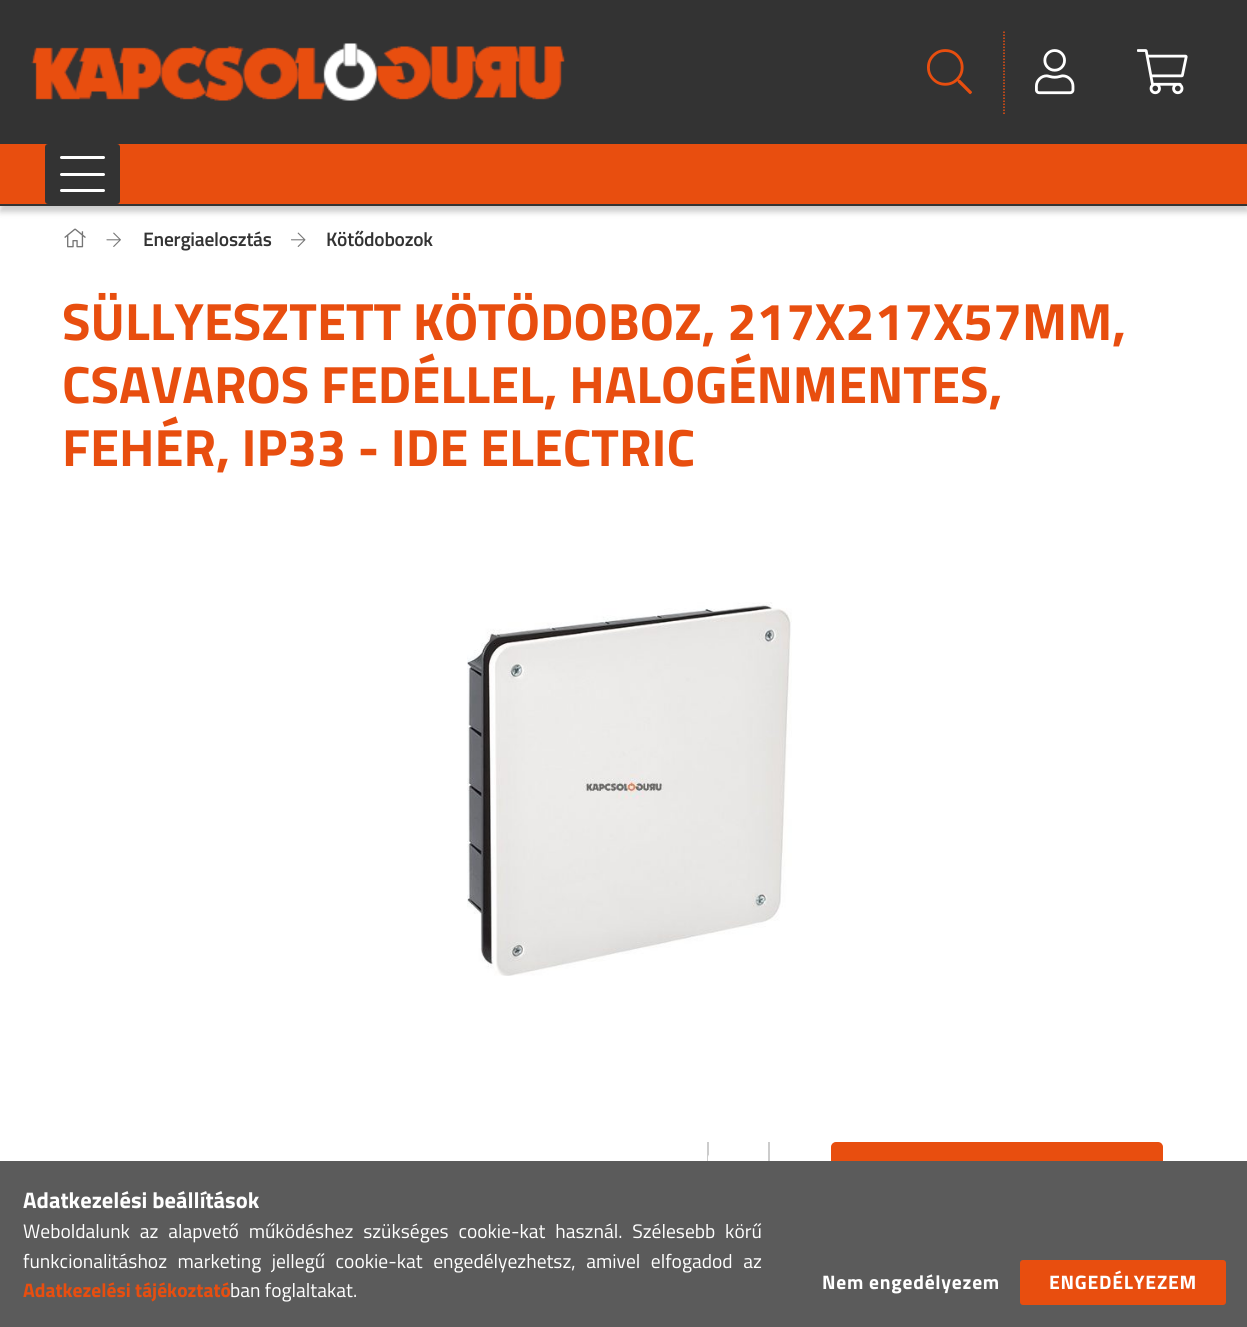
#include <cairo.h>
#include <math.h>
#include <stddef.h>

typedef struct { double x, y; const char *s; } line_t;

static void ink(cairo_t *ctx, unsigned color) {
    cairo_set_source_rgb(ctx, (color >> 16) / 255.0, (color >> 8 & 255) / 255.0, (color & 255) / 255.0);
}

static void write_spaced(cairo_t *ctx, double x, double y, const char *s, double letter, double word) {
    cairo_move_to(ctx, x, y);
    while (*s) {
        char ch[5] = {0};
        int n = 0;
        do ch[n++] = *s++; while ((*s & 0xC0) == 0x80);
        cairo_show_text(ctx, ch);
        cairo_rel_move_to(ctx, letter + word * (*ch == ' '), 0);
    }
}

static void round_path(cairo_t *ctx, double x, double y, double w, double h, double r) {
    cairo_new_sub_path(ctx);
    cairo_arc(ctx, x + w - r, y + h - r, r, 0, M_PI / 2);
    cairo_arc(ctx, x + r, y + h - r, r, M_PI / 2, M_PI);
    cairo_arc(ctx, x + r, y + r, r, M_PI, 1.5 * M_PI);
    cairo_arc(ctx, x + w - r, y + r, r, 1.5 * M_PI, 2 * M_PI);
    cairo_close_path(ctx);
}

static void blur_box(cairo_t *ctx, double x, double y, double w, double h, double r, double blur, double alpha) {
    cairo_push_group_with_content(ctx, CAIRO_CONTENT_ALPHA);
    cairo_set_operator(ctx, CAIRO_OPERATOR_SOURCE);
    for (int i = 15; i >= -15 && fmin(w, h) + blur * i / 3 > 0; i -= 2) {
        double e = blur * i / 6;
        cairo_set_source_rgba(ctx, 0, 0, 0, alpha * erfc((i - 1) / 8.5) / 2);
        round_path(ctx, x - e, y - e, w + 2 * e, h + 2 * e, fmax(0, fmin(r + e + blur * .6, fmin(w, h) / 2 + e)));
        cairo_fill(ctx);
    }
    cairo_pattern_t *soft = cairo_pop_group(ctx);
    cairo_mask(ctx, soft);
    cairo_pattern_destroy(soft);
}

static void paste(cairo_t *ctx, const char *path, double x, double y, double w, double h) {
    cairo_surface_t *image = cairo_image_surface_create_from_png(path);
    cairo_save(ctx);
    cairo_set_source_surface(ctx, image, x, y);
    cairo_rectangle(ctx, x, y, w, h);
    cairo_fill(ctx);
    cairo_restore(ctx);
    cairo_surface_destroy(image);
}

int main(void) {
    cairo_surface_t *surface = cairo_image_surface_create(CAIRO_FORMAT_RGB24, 1247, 1327);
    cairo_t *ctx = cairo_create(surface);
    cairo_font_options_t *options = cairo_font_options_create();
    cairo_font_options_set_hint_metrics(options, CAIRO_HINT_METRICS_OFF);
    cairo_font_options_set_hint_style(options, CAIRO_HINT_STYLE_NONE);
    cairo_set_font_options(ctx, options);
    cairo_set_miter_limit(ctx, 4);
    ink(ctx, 0xFFFFFF);
    cairo_paint(ctx);
    ink(ctx, 0x000000);
    blur_box(ctx, 0, 6, 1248, 206, 0, 3, 0.2);
    ink(ctx, 0x333333);
    cairo_rectangle(ctx, 0, 0, 1247, 206);
    cairo_fill(ctx);
    paste(ctx, "media/1.png", 31, 43, 534, 58);
    cairo_new_path(ctx);
    cairo_move_to(ctx, 1004, 31.5);
    cairo_line_to(ctx, 1004, 114);
    ink(ctx, 0xE84E0F);
    cairo_set_line_width(ctx, 1.5);
    cairo_set_dash(ctx, (double[]){1.5, 1.5}, 2, 0);
    cairo_stroke(ctx);
    paste(ctx, "media/2.png", 927, 49, 45, 46);
    paste(ctx, "media/3.png", 1035, 49, 40, 46);
    paste(ctx, "media/4.png", 1137, 49, 51, 46);
    cairo_rectangle(ctx, 0, 144, 1247, 60);
    cairo_fill(ctx);
    ink(ctx, 0x333333);
    round_path(ctx, 45, 144, 75, 60, 3);
    cairo_fill(ctx);
    ink(ctx, 0xFFFFFF);
    round_path(ctx, 60, 156, 45, 3, 1.5);
    cairo_fill(ctx);
    round_path(ctx, 60, 173, 45, 3, 1.5);
    cairo_fill(ctx);
    round_path(ctx, 60, 189, 45, 3, 1.5);
    cairo_fill(ctx);
    paste(ctx, "media/5.png", 64, 228, 22, 20);
    paste(ctx, "media/6.png", 106, 232, 15, 15);
    cairo_select_font_face(ctx, "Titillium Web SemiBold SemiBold", CAIRO_FONT_SLANT_NORMAL, CAIRO_FONT_WEIGHT_NORMAL);
    cairo_set_font_size(ctx, 19.5);
    ink(ctx, 0x333333);
    write_spaced(ctx, 143, 246, "Energiaelosztás", -0.25, 0);
    paste(ctx, "media/7.png", 291, 232, 15, 15);
    write_spaced(ctx, 326, 246, "Kötődobozok", -0.25, 0);
    cairo_select_font_face(ctx, "Titillium Web", CAIRO_FONT_SLANT_NORMAL, CAIRO_FONT_WEIGHT_BOLD);
    cairo_set_font_size(ctx, 52.5);
    ink(ctx, 0xE84E0F);
    {
        static const line_t items[] = {
            {62, 340, "SÜLLYESZTETT KÖTÖDOBOZ, 217X217X57MM,"},
            {62, 403, "CSAVAROS FEDÉLLEL, HALOGÉNMENTES,"},
            {62, 466, "FEHÉR, IP33 - IDE ELECTRIC"},
        };
        for (size_t i = 0; i < sizeof items / sizeof *items; i++) {
            cairo_move_to(ctx, items[i].x, items[i].y);
            cairo_show_text(ctx, items[i].s);
        }
    }
    paste(ctx, "media/8.png", 467, 602, 325, 374);
    ink(ctx, 0xCCCCCC);
    cairo_rectangle(ctx, 768, 1142, 2, 19);
    cairo_fill(ctx);
    cairo_rectangle(ctx, 707, 1142, 2, 19);
    cairo_fill(ctx);
    ink(ctx, 0xFFFFFF);
    round_path(ctx, 708, 1154, 60, 45, 3);
    cairo_fill(ctx);
    ink(ctx, 0xE84E0F);
    round_path(ctx, 832, 1143, 330, 67, 4);
    cairo_fill_preserve(ctx);
    cairo_set_line_width(ctx, 2);
    cairo_set_dash(ctx, NULL, 0, 0);
    cairo_stroke(ctx);
    ink(ctx, 0x5B5B5B);
    cairo_rectangle(ctx, 0, 1161, 1247, 166);
    cairo_fill(ctx);
    cairo_set_font_size(ctx, 22.5);
    ink(ctx, 0xFFFFFF);
    cairo_move_to(ctx, 23, 1208);
    cairo_show_text(ctx, "Adatkezelési beállítások");
    cairo_select_font_face(ctx, "Titillium Web", CAIRO_FONT_SLANT_NORMAL, CAIRO_FONT_WEIGHT_NORMAL);
    cairo_set_font_size(ctx, 19.5);
    write_spaced(ctx, 23, 1238, "Weboldalunk az alapvető működéshez szükséges cookie-kat használ. Szélesebb körű", 0, 5.5);
    write_spaced(ctx, 23, 1268, "funkcionalitáshoz marketing jellegű cookie-kat engedélyezhetsz, amivel elfogadod az", 0, 6.25);
    cairo_select_font_face(ctx, "Titillium Web", CAIRO_FONT_SLANT_NORMAL, CAIRO_FONT_WEIGHT_BOLD);
    ink(ctx, 0xE84E0F);
    cairo_move_to(ctx, 23, 1297);
    cairo_show_text(ctx, "Adatkezelési tájékoztató");
    cairo_select_font_face(ctx, "Titillium Web", CAIRO_FONT_SLANT_NORMAL, CAIRO_FONT_WEIGHT_NORMAL);
    ink(ctx, 0xFFFFFF);
    cairo_move_to(ctx, 230, 1297);
    cairo_show_text(ctx, "ban foglaltakat.");
    cairo_select_font_face(ctx, "Titillium Web", CAIRO_FONT_SLANT_NORMAL, CAIRO_FONT_WEIGHT_BOLD);
    write_spaced(ctx, 822, 1289, "Nem engedélyezem", 0.75, 0);
    ink(ctx, 0xE84E0F);
    round_path(ctx, 1021, 1261, 204, 43, 2);
    cairo_fill_preserve(ctx);
    cairo_stroke(ctx);
    ink(ctx, 0xFFFFFF);
    write_spaced(ctx, 1049, 1289, "ENGEDÉLYEZEM", 0.75, 0);
    cairo_surface_write_to_png(surface, "image.png");
    cairo_font_options_destroy(options);
    cairo_destroy(ctx);
    cairo_surface_destroy(surface);
    return 0;
}
